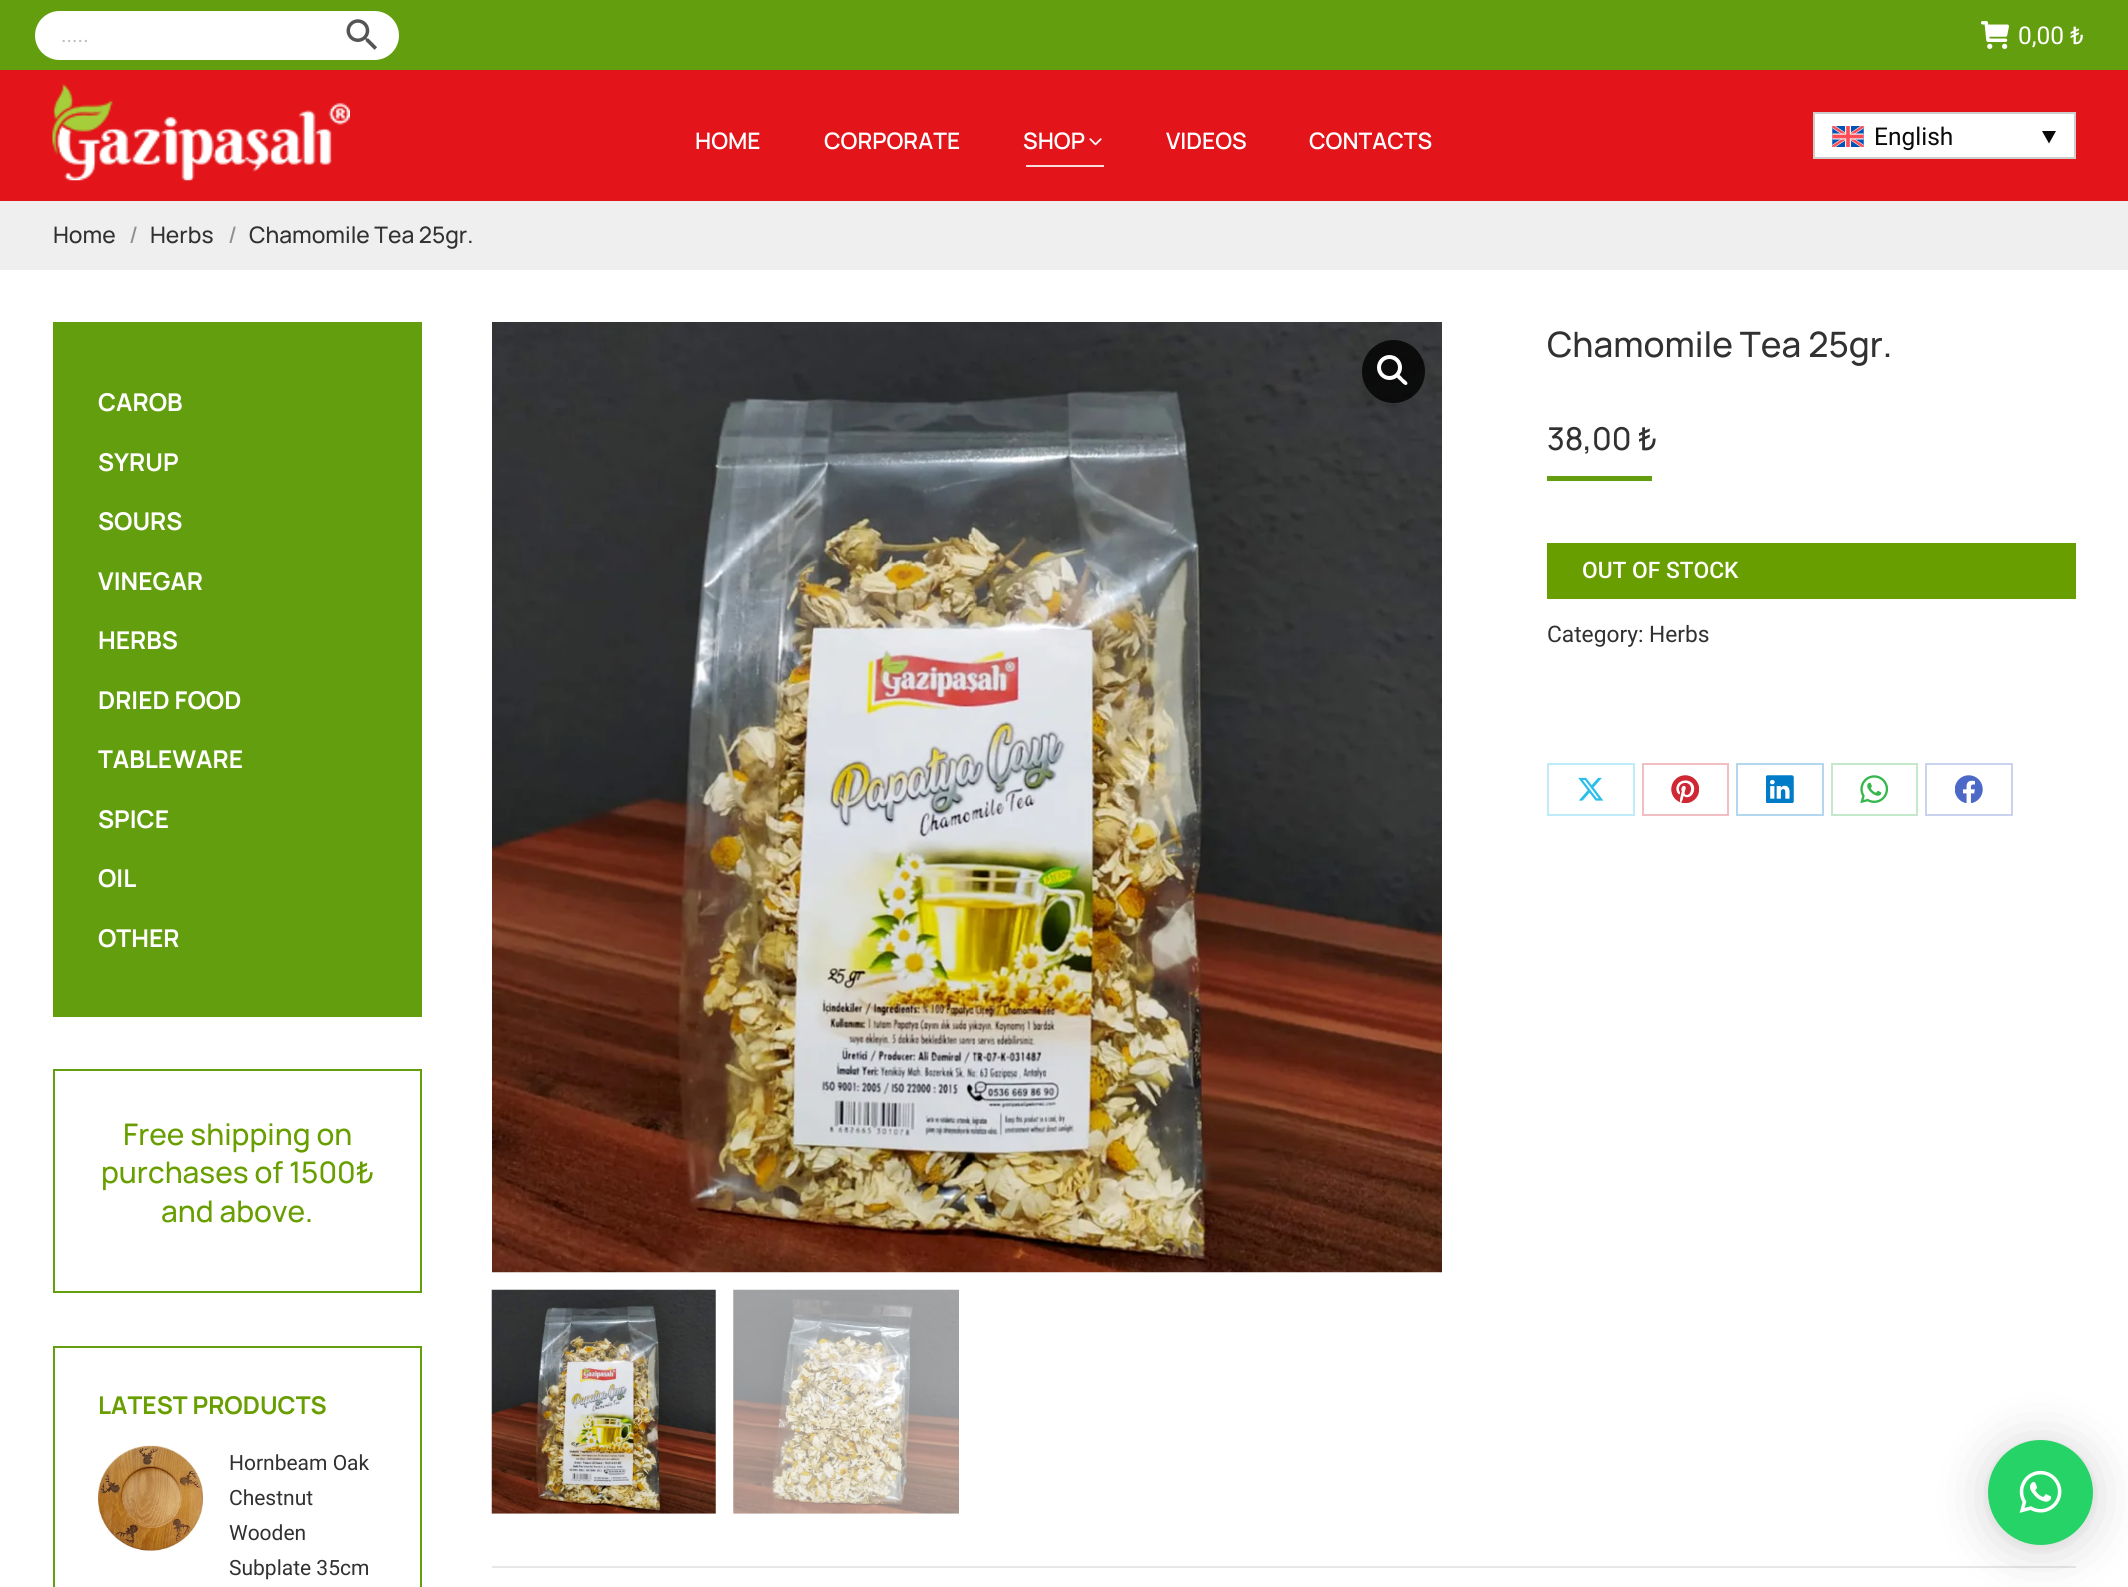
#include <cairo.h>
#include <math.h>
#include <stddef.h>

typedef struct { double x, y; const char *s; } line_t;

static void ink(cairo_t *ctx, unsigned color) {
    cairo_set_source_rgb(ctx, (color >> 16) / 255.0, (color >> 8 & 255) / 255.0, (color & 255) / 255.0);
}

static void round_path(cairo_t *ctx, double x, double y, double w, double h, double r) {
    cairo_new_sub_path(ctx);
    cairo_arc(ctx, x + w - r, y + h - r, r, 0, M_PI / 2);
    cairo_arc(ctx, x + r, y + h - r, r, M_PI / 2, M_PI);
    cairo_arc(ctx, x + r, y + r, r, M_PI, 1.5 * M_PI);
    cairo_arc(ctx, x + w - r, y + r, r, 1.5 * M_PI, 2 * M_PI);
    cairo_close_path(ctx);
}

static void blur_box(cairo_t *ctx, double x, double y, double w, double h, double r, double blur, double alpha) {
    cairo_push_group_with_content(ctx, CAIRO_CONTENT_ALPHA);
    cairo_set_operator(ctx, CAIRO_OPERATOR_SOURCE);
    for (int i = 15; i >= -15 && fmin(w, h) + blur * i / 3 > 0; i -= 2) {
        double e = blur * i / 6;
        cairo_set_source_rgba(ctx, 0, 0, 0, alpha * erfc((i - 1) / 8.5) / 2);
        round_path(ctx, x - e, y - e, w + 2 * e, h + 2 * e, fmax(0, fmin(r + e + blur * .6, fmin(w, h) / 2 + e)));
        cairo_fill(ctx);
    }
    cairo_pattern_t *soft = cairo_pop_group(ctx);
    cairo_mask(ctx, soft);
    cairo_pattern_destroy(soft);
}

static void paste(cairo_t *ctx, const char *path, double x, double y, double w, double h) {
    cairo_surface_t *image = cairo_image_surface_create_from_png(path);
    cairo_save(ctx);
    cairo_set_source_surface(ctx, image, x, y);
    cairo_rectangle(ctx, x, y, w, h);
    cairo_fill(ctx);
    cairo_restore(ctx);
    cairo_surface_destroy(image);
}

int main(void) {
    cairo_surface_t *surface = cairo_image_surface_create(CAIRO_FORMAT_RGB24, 2128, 1587);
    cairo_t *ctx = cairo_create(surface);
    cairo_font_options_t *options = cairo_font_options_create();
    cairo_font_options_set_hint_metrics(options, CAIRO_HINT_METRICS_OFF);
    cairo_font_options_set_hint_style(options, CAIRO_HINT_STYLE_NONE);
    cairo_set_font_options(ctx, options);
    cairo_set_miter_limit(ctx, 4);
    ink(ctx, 0xFFFFFF);
    cairo_paint(ctx);
    ink(ctx, 0xE3141A);
    cairo_rectangle(ctx, 0, 70, 2128, 131);
    cairo_fill(ctx);
    ink(ctx, 0x639E0E);
    cairo_rectangle(ctx, 0, 0, 2128, 70);
    cairo_fill(ctx);
    ink(ctx, 0xFFFFFF);
    cairo_new_path(ctx);
    cairo_move_to(ctx, 326, 11);
    cairo_line_to(ctx, 374.5, 11);
    cairo_curve_to(ctx, 388, 11, 399, 22, 399, 35.5);
    cairo_curve_to(ctx, 399, 49, 388, 60, 374.5, 60);
    cairo_line_to(ctx, 326, 60);
    cairo_close_path(ctx);
    cairo_fill(ctx);
    cairo_new_path(ctx);
    cairo_move_to(ctx, 59.5, 11);
    cairo_line_to(ctx, 327, 11);
    cairo_line_to(ctx, 327, 60);
    cairo_line_to(ctx, 59.5, 60);
    cairo_curve_to(ctx, 46, 60, 35, 49, 35, 35.5);
    cairo_curve_to(ctx, 35, 22, 46, 11, 59.5, 11);
    cairo_close_path(ctx);
    cairo_fill(ctx);
    cairo_select_font_face(ctx, "Roboto", CAIRO_FONT_SLANT_NORMAL, CAIRO_FONT_WEIGHT_NORMAL);
    cairo_set_font_size(ctx, 21);
    ink(ctx, 0xBCBEC2);
    cairo_move_to(ctx, 61, 42);
    cairo_show_text(ctx, ".....");
    paste(ctx, "media/1.png", 346, 19, 31, 31);
    paste(ctx, "media/2.png", 1981, 21, 28, 28);
    cairo_set_font_size(ctx, 24.5);
    ink(ctx, 0xFFFFFF);
    cairo_move_to(ctx, 2018, 44);
    cairo_show_text(ctx, "0,00 ₺");
    paste(ctx, "media/3.png", 52, 84, 298, 97);
    cairo_select_font_face(ctx, "Manrope SemiBold", CAIRO_FONT_SLANT_NORMAL, CAIRO_FONT_WEIGHT_NORMAL);
    cairo_set_font_size(ctx, 22.75);
    {
        static const line_t items[] = {
            {695, 149, "HOME"},
            {824, 149, "CORPORATE"},
            {1023, 149, "SHOP"},
        };
        for (size_t i = 0; i < sizeof items / sizeof *items; i++) {
            cairo_move_to(ctx, items[i].x, items[i].y);
            cairo_show_text(ctx, items[i].s);
        }
    }
    paste(ctx, "media/4.png", 1089, 138, 13, 8);
    ink(ctx, 0xFBDCDD);
    cairo_rectangle(ctx, 1026, 165, 78, 2);
    cairo_fill(ctx);
    ink(ctx, 0xFFFFFF);
    cairo_move_to(ctx, 1166, 149);
    cairo_show_text(ctx, "VIDEOS");
    cairo_move_to(ctx, 1309, 149);
    cairo_show_text(ctx, "CONTACTS");
    cairo_rectangle(ctx, 1814, 113, 261, 45);
    cairo_fill_preserve(ctx);
    ink(ctx, 0xCDCDCD);
    cairo_stroke(ctx);
    paste(ctx, "media/5.png", 1832, 126, 32, 21);
    cairo_select_font_face(ctx, "Roboto", CAIRO_FONT_SLANT_NORMAL, CAIRO_FONT_WEIGHT_NORMAL);
    cairo_set_font_size(ctx, 24.5);
    ink(ctx, 0x0A0A0A);
    cairo_move_to(ctx, 1874, 145);
    cairo_show_text(ctx, "English");
    cairo_new_path(ctx);
    cairo_move_to(ctx, 2042, 131);
    cairo_line_to(ctx, 2056, 131);
    cairo_line_to(ctx, 2049, 143.5);
    cairo_close_path(ctx);
    cairo_fill(ctx);
    ink(ctx, 0xEFEFEF);
    cairo_rectangle(ctx, 0, 201, 2128, 69);
    cairo_fill(ctx);
    cairo_select_font_face(ctx, "Manrope Medium", CAIRO_FONT_SLANT_NORMAL, CAIRO_FONT_WEIGHT_NORMAL);
    cairo_set_font_size(ctx, 22.75);
    ink(ctx, 0x313131);
    cairo_move_to(ctx, 53, 243);
    cairo_show_text(ctx, "Home");
    ink(ctx, 0x909090);
    cairo_move_to(ctx, 129, 243);
    cairo_show_text(ctx, "/");
    ink(ctx, 0x313131);
    cairo_move_to(ctx, 150, 243);
    cairo_show_text(ctx, "Herbs");
    ink(ctx, 0x909090);
    cairo_move_to(ctx, 228, 243);
    cairo_show_text(ctx, "/");
    ink(ctx, 0x313131);
    cairo_move_to(ctx, 249, 243);
    cairo_show_text(ctx, "Chamomile Tea 25gr.");
    ink(ctx, 0x639E0E);
    cairo_rectangle(ctx, 53, 322, 369, 695);
    cairo_fill(ctx);
    cairo_select_font_face(ctx, "Manrope", CAIRO_FONT_SLANT_NORMAL, CAIRO_FONT_WEIGHT_BOLD);
    cairo_set_font_size(ctx, 24.5);
    ink(ctx, 0xFFFFFF);
    {
        static const line_t items[] = {
            {98, 411, "CAROB"},
            {98, 471, "SYRUP"},
            {98, 530, "SOURS"},
            {98, 590, "VINEGAR"},
            {98, 649, "HERBS"},
            {98, 709, "DRIED FOOD"},
            {98, 768, "TABLEWARE"},
            {98, 828, "SPICE"},
            {98, 887, "OIL"},
            {98, 947, "OTHER"},
        };
        for (size_t i = 0; i < sizeof items / sizeof *items; i++) {
            cairo_move_to(ctx, items[i].x, items[i].y);
            cairo_show_text(ctx, items[i].s);
        }
    }
    cairo_rectangle(ctx, 54, 1070, 367, 222);
    ink(ctx, 0x639E0E);
    cairo_stroke(ctx);
    cairo_select_font_face(ctx, "Manrope Medium", CAIRO_FONT_SLANT_NORMAL, CAIRO_FONT_WEIGHT_NORMAL);
    cairo_set_font_size(ctx, 29.75);
    ink(ctx, 0x699E00);
    {
        static const line_t items[] = {
            {123, 1145, "Free shipping on"},
            {101, 1183, "purchases of 1500₺"},
            {161, 1222, "and above."},
        };
        for (size_t i = 0; i < sizeof items / sizeof *items; i++) {
            cairo_move_to(ctx, items[i].x, items[i].y);
            cairo_show_text(ctx, items[i].s);
        }
    }
    cairo_rectangle(ctx, 54, 1347, 367, 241);
    ink(ctx, 0x639E0E);
    cairo_stroke(ctx);
    cairo_select_font_face(ctx, "Manrope", CAIRO_FONT_SLANT_NORMAL, CAIRO_FONT_WEIGHT_BOLD);
    cairo_set_font_size(ctx, 24.5);
    ink(ctx, 0x699E00);
    cairo_move_to(ctx, 98, 1414);
    cairo_show_text(ctx, "LATEST PRODUCTS");
    paste(ctx, "media/6.png", 98, 1445, 105, 106);
    cairo_select_font_face(ctx, "Roboto", CAIRO_FONT_SLANT_NORMAL, CAIRO_FONT_WEIGHT_NORMAL);
    cairo_set_font_size(ctx, 21);
    ink(ctx, 0x313131);
    {
        static const line_t items[] = {
            {229, 1470, "Hornbeam Oak"},
            {229, 1505, "Chestnut"},
            {229, 1540, "Wooden"},
            {229, 1575, "Subplate 35cm"},
        };
        for (size_t i = 0; i < sizeof items / sizeof *items; i++) {
            cairo_move_to(ctx, items[i].x, items[i].y);
            cairo_show_text(ctx, items[i].s);
        }
    }
    paste(ctx, "media/7.png", 492, 322, 950, 951);
    cairo_set_source_rgba(ctx, 0, 0, 0, 0.8);
    cairo_arc(ctx, 1393.5, 371.5, 31.5, 0, 2 * M_PI);
    cairo_fill(ctx);
    cairo_arc(ctx, 1389.5, 367.5, 10.5, 0, 2 * M_PI);
    ink(ctx, 0xFFFFFF);
    cairo_set_line_width(ctx, 4);
    cairo_stroke(ctx);
    cairo_new_path(ctx);
    cairo_move_to(ctx, 1397, 375);
    cairo_curve_to(ctx, 1399, 373, 1402, 377.5, 1403, 378.5);
    cairo_curve_to(ctx, 1404, 379.5, 1409, 382.5, 1407, 384.5);
    cairo_curve_to(ctx, 1405, 386.5, 1401.5, 382, 1400.5, 381);
    cairo_curve_to(ctx, 1399.5, 380, 1395, 377, 1397, 375);
    cairo_close_path(ctx);
    cairo_fill(ctx);
    paste(ctx, "media/8.png", 491, 1289, 225, 225);
    paste(ctx, "media/9.png", 733, 1289, 226, 225);
    cairo_select_font_face(ctx, "Manrope Medium", CAIRO_FONT_SLANT_NORMAL, CAIRO_FONT_WEIGHT_NORMAL);
    cairo_set_font_size(ctx, 35);
    ink(ctx, 0x313131);
    cairo_move_to(ctx, 1547, 357);
    cairo_show_text(ctx, "Chamomile Tea 25gr.");
    cairo_set_font_size(ctx, 31.5);
    cairo_move_to(ctx, 1547, 450);
    cairo_show_text(ctx, "38,00 ₺");
    ink(ctx, 0x639E0E);
    cairo_rectangle(ctx, 1547, 476, 105, 5);
    cairo_fill(ctx);
    ink(ctx, 0x699E00);
    cairo_rectangle(ctx, 1547, 543, 529, 56);
    cairo_fill(ctx);
    cairo_select_font_face(ctx, "Roboto Medium", CAIRO_FONT_SLANT_NORMAL, CAIRO_FONT_WEIGHT_NORMAL);
    cairo_set_font_size(ctx, 22.75);
    ink(ctx, 0xFFFFFF);
    cairo_move_to(ctx, 1582, 578);
    cairo_show_text(ctx, "OUT OF STOCK");
    cairo_select_font_face(ctx, "Roboto", CAIRO_FONT_SLANT_NORMAL, CAIRO_FONT_WEIGHT_NORMAL);
    ink(ctx, 0x313131);
    cairo_move_to(ctx, 1547, 642);
    cairo_show_text(ctx, "Category: Herbs");
    cairo_rectangle(ctx, 1548, 764, 86, 51);
    ink(ctx, 0xBFECF9);
    cairo_set_line_width(ctx, 2);
    cairo_stroke(ctx);
    paste(ctx, "media/10.png", 1578, 777, 26, 24);
    cairo_rectangle(ctx, 1643, 764, 85, 51);
    ink(ctx, 0xF1BFC2);
    cairo_stroke(ctx);
    paste(ctx, "media/11.png", 1671, 775, 28, 28);
    cairo_rectangle(ctx, 1737, 764, 86, 51);
    ink(ctx, 0xB3D7EE);
    cairo_stroke(ctx);
    paste(ctx, "media/12.png", 1766, 775, 28, 28);
    cairo_rectangle(ctx, 1832, 764, 85, 51);
    ink(ctx, 0xC3E9CA);
    cairo_stroke(ctx);
    paste(ctx, "media/13.png", 1860, 775, 28, 28);
    cairo_rectangle(ctx, 1926, 764, 86, 51);
    ink(ctx, 0xC9D2EE);
    cairo_stroke(ctx);
    paste(ctx, "media/14.png", 1955, 775, 28, 28);
    ink(ctx, 0xE6E7E9);
    cairo_rectangle(ctx, 492, 1566, 1584, 2);
    cairo_fill(ctx);
    ink(ctx, 0x000000);
    blur_box(ctx, 1988, 1444, 105, 105, 52.5, 28, 0.16);
    blur_box(ctx, 1988, 1442, 105, 105, 52.5, 5, 0.06);
    ink(ctx, 0x25D366);
    cairo_arc(ctx, 2040.5, 1492.5, 52.5, 0, 2 * M_PI);
    cairo_fill(ctx);
    paste(ctx, "media/15.png", 2019, 1470, 43, 43);
    cairo_surface_write_to_png(surface, "image.png");
    cairo_font_options_destroy(options);
    cairo_destroy(ctx);
    cairo_surface_destroy(surface);
    return 0;
}
